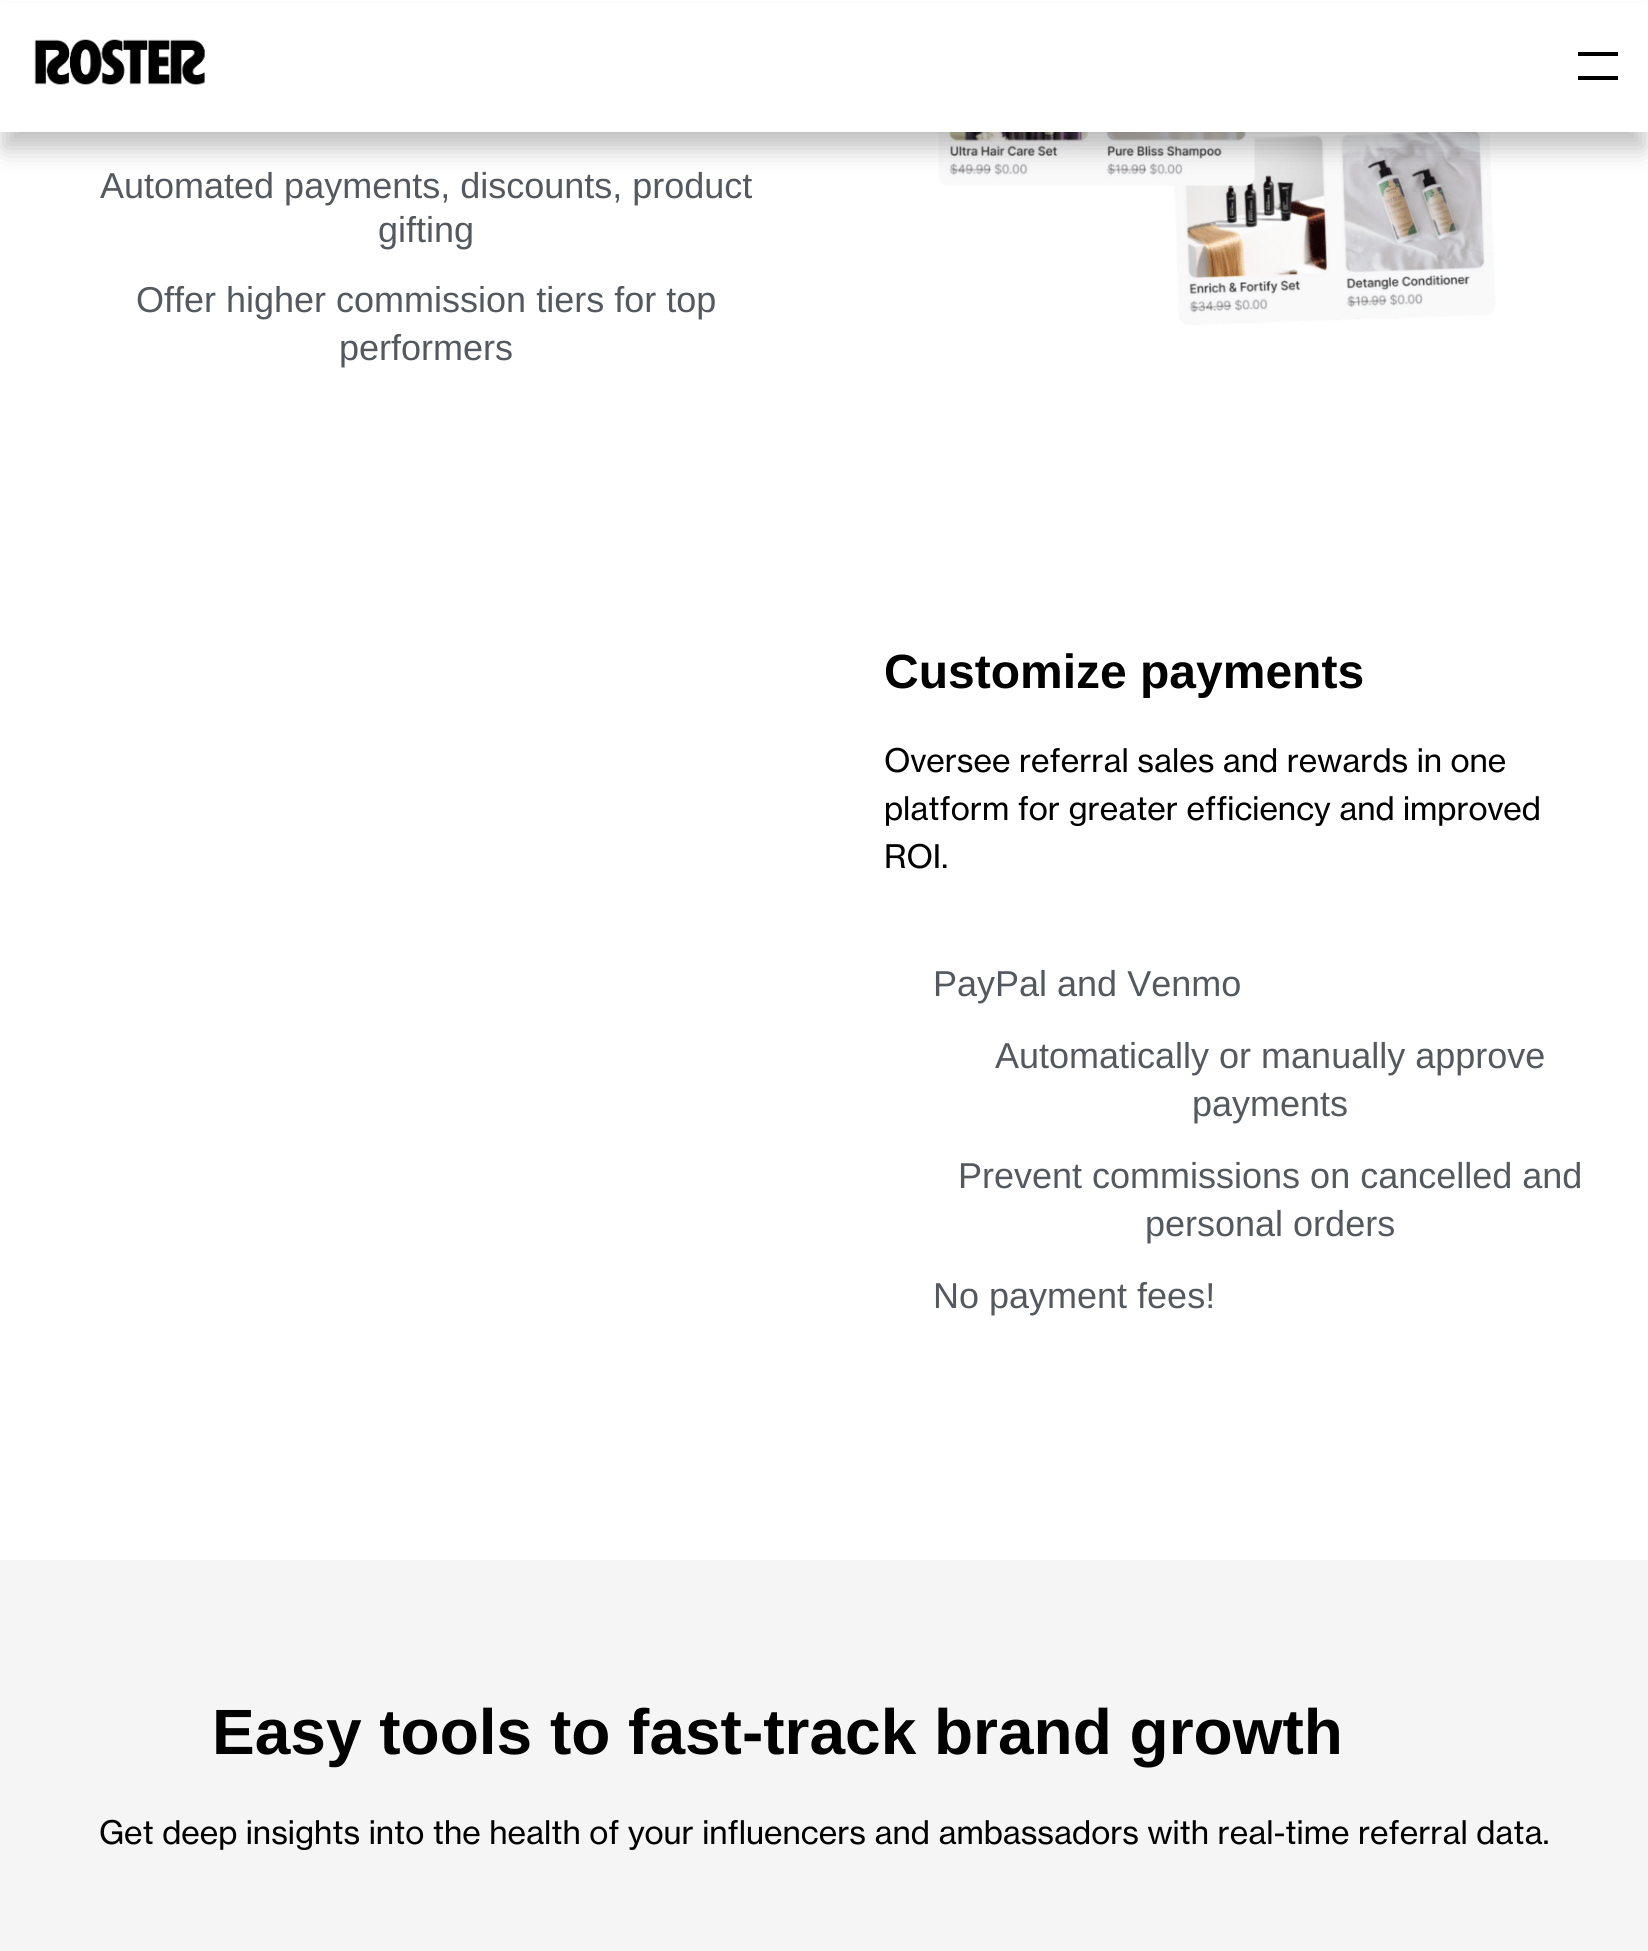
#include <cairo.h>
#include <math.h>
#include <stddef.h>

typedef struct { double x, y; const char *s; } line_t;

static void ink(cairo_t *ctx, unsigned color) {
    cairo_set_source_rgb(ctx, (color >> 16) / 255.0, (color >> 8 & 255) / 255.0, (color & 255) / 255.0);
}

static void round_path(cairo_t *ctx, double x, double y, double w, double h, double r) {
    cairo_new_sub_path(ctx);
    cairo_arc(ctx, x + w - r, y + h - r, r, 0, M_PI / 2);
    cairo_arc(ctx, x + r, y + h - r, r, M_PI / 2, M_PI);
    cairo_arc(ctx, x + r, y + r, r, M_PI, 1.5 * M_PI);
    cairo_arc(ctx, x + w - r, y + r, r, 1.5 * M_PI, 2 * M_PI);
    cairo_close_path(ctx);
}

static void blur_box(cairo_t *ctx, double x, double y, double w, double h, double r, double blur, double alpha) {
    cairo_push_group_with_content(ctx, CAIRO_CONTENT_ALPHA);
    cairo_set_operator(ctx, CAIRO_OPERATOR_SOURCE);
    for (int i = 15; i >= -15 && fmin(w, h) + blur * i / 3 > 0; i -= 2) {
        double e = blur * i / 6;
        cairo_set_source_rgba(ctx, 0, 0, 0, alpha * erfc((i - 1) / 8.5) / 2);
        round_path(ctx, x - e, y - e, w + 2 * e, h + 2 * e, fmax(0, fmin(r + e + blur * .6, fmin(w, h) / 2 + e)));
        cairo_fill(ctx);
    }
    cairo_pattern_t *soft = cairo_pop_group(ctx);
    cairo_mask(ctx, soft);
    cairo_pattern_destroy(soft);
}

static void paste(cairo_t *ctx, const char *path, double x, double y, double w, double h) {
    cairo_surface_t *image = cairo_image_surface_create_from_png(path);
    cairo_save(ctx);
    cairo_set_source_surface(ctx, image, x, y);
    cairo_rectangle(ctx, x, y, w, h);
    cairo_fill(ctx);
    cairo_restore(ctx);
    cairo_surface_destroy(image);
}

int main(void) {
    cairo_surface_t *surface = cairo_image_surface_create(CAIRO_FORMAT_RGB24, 1648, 1951);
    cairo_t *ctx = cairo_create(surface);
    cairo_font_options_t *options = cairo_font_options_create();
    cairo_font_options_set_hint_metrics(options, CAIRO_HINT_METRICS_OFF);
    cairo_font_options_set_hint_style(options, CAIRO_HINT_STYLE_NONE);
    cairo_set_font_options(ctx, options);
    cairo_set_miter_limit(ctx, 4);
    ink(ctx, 0xFFFFFF);
    cairo_paint(ctx);
    paste(ctx, "media/2.png", 938, 132, 558, 194);
    ink(ctx, 0x000000);
    blur_box(ctx, 4, 24, 1640, 124, 0, 12, 0.25);
    ink(ctx, 0xFFFFFF);
    cairo_rectangle(ctx, 0, 3, 1648, 129);
    cairo_fill(ctx);
    paste(ctx, "media/1.png", 34, 39, 171, 46);
    ink(ctx, 0x000000);
    cairo_rectangle(ctx, 1578, 52, 40, 4);
    cairo_fill(ctx);
    cairo_rectangle(ctx, 1578, 76, 40, 4);
    cairo_fill(ctx);
    cairo_select_font_face(ctx, "Liberation Sans", CAIRO_FONT_SLANT_NORMAL, CAIRO_FONT_WEIGHT_NORMAL);
    cairo_set_font_size(ctx, 36);
    ink(ctx, 0x54595F);
    {
        static const line_t items[] = {
            {100, 198, "Automated payments, discounts, product"},
            {378, 242, "gifting"},
            {136, 312, "Offer higher commission tiers for top"},
            {339, 360, "performers"},
        };
        for (size_t i = 0; i < sizeof items / sizeof *items; i++) {
            cairo_move_to(ctx, items[i].x, items[i].y);
            cairo_show_text(ctx, items[i].s);
        }
    }
    cairo_select_font_face(ctx, "Liberation Sans", CAIRO_FONT_SLANT_NORMAL, CAIRO_FONT_WEIGHT_BOLD);
    cairo_set_font_size(ctx, 48);
    ink(ctx, 0x000000);
    cairo_move_to(ctx, 884, 688);
    cairo_show_text(ctx, "Customize payments");
    cairo_select_font_face(ctx, "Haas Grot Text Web", CAIRO_FONT_SLANT_NORMAL, CAIRO_FONT_WEIGHT_NORMAL);
    cairo_set_font_size(ctx, 32);
    {
        static const line_t items[] = {
            {884, 772, "Oversee referral sales and rewards in one"},
            {884, 820, "platform for greater efficiency and improved"},
            {884, 868, "ROI."},
        };
        for (size_t i = 0; i < sizeof items / sizeof *items; i++) {
            cairo_move_to(ctx, items[i].x, items[i].y);
            cairo_show_text(ctx, items[i].s);
        }
    }
    cairo_select_font_face(ctx, "Liberation Sans", CAIRO_FONT_SLANT_NORMAL, CAIRO_FONT_WEIGHT_NORMAL);
    cairo_set_font_size(ctx, 36);
    ink(ctx, 0x54595F);
    {
        static const line_t items[] = {
            {933, 996, "PayPal and Venmo"},
            {995, 1068, "Automatically or manually approve"},
            {1192, 1116, "payments"},
            {958, 1188, "Prevent commissions on cancelled and"},
            {1145, 1236, "personal orders"},
            {933, 1308, "No payment fees!"},
        };
        for (size_t i = 0; i < sizeof items / sizeof *items; i++) {
            cairo_move_to(ctx, items[i].x, items[i].y);
            cairo_show_text(ctx, items[i].s);
        }
    }
    ink(ctx, 0xF5F5F5);
    cairo_rectangle(ctx, 0, 1560, 1648, 391);
    cairo_fill(ctx);
    cairo_select_font_face(ctx, "Liberation Sans", CAIRO_FONT_SLANT_NORMAL, CAIRO_FONT_WEIGHT_BOLD);
    cairo_set_font_size(ctx, 64);
    ink(ctx, 0x000000);
    cairo_move_to(ctx, 212, 1754);
    cairo_show_text(ctx, "Easy tools to fast-track brand growth");
    cairo_select_font_face(ctx, "Haas Grot Text Web", CAIRO_FONT_SLANT_NORMAL, CAIRO_FONT_WEIGHT_NORMAL);
    cairo_set_font_size(ctx, 32);
    cairo_move_to(ctx, 99, 1844);
    cairo_show_text(ctx, "Get deep insights into the health of your influencers and ambassadors with real-time referral data.");
    cairo_surface_write_to_png(surface, "image.png");
    cairo_font_options_destroy(options);
    cairo_destroy(ctx);
    cairo_surface_destroy(surface);
    return 0;
}
